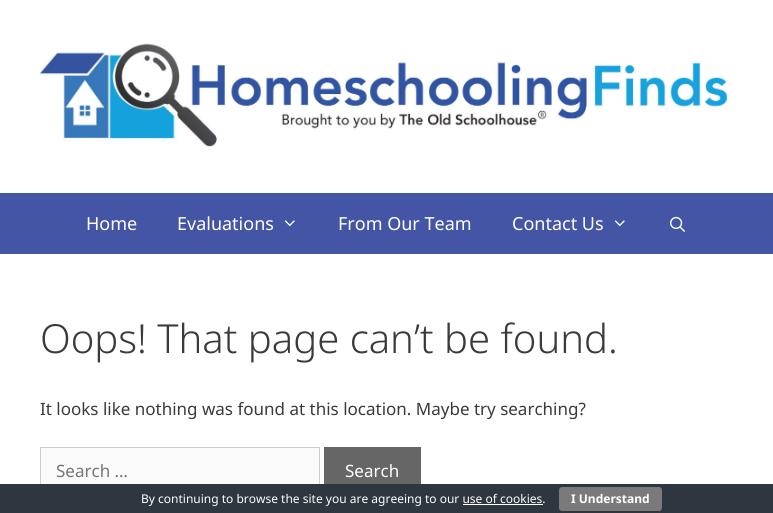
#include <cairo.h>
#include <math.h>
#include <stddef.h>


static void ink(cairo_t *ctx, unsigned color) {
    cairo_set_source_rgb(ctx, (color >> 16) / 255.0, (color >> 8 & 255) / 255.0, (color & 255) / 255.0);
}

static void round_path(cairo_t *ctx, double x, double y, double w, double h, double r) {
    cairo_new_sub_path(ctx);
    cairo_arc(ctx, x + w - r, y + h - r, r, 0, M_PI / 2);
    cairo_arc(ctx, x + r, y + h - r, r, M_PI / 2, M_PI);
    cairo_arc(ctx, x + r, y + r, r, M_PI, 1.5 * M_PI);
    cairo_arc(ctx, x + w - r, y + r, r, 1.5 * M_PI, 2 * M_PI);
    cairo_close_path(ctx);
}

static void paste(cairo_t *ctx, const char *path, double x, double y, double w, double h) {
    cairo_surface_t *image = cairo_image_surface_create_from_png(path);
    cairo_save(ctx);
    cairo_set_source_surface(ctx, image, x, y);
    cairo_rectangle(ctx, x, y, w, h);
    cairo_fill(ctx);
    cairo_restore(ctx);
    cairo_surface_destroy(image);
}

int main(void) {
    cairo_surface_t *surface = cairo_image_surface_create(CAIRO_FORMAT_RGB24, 773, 513);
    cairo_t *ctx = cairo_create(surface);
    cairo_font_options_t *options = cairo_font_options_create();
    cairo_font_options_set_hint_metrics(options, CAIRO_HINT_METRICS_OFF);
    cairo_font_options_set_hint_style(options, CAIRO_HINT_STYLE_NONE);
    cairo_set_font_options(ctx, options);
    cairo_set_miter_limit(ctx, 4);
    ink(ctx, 0xFFFFFF);
    cairo_paint(ctx);
    paste(ctx, "media/1.png", 40, 43, 689, 104);
    ink(ctx, 0x4555A5);
    cairo_rectangle(ctx, 0, 193, 773, 61);
    cairo_fill(ctx);
    cairo_select_font_face(ctx, "Noto Sans", CAIRO_FONT_SLANT_NORMAL, CAIRO_FONT_WEIGHT_NORMAL);
    cairo_set_font_size(ctx, 18);
    ink(ctx, 0xFFFFFF);
    cairo_move_to(ctx, 86, 230);
    cairo_show_text(ctx, "Home");
    cairo_move_to(ctx, 177, 230);
    cairo_show_text(ctx, "Evaluations");
    paste(ctx, "media/2.png", 284, 220, 11, 7);
    cairo_move_to(ctx, 338, 230);
    cairo_show_text(ctx, "From Our Team");
    cairo_move_to(ctx, 512, 230);
    cairo_show_text(ctx, "Contact Us");
    paste(ctx, "media/2.png", 614, 220, 11, 7);
    paste(ctx, "media/3.png", 670, 216, 15, 16);
    cairo_select_font_face(ctx, "Noto Sans Light", CAIRO_FONT_SLANT_NORMAL, CAIRO_FONT_WEIGHT_NORMAL);
    cairo_set_font_size(ctx, 40);
    ink(ctx, 0x3A3A3A);
    cairo_move_to(ctx, 40, 353);
    cairo_show_text(ctx, "Oops! That page can’t be found.");
    cairo_select_font_face(ctx, "Noto Sans", CAIRO_FONT_SLANT_NORMAL, CAIRO_FONT_WEIGHT_NORMAL);
    cairo_set_font_size(ctx, 17);
    cairo_move_to(ctx, 40, 415);
    cairo_show_text(ctx, "It looks like nothing was found at this location. Maybe try searching?");
    ink(ctx, 0xFAFAFA);
    cairo_rectangle(ctx, 41, 448, 278, 36);
    cairo_fill(ctx);
    cairo_rectangle(ctx, 40.5, 447.5, 279, 47);
    ink(ctx, 0xCCCCCC);
    cairo_set_line_width(ctx, 1);
    cairo_stroke(ctx);
    ink(ctx, 0x757575);
    cairo_move_to(ctx, 56, 477);
    cairo_show_text(ctx, "Search …");
    ink(ctx, 0x666666);
    cairo_rectangle(ctx, 324, 447, 97, 37);
    cairo_fill(ctx);
    ink(ctx, 0xFFFFFF);
    cairo_move_to(ctx, 345, 477);
    cairo_show_text(ctx, "Search");
    ink(ctx, 0x2E363F);
    cairo_rectangle(ctx, 0, 484, 773, 29);
    cairo_fill(ctx);
    cairo_set_font_size(ctx, 12);
    ink(ctx, 0xFFFFFF);
    cairo_move_to(ctx, 141, 503);
    cairo_show_text(ctx, "By continuing to browse the site you are agreeing to our use of cookies.");
    ink(ctx, 0x7A7A7A);
    round_path(ctx, 559, 487, 103, 24, 3);
    cairo_fill(ctx);
    cairo_select_font_face(ctx, "Noto Sans", CAIRO_FONT_SLANT_NORMAL, CAIRO_FONT_WEIGHT_BOLD);
    ink(ctx, 0xFFFFFF);
    cairo_move_to(ctx, 571, 503);
    cairo_show_text(ctx, "I Understand");
    cairo_rectangle(ctx, 463, 504, 80, 1);
    cairo_fill(ctx);
    cairo_surface_write_to_png(surface, "image.png");
    cairo_font_options_destroy(options);
    cairo_destroy(ctx);
    cairo_surface_destroy(surface);
    return 0;
}
